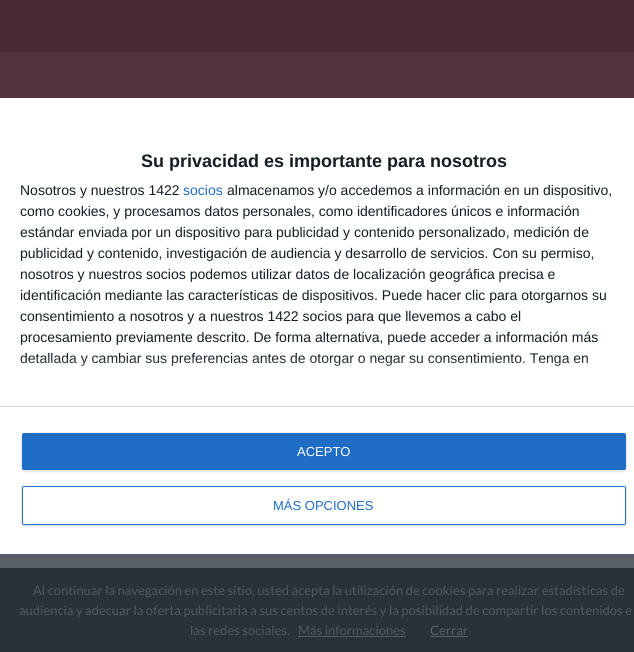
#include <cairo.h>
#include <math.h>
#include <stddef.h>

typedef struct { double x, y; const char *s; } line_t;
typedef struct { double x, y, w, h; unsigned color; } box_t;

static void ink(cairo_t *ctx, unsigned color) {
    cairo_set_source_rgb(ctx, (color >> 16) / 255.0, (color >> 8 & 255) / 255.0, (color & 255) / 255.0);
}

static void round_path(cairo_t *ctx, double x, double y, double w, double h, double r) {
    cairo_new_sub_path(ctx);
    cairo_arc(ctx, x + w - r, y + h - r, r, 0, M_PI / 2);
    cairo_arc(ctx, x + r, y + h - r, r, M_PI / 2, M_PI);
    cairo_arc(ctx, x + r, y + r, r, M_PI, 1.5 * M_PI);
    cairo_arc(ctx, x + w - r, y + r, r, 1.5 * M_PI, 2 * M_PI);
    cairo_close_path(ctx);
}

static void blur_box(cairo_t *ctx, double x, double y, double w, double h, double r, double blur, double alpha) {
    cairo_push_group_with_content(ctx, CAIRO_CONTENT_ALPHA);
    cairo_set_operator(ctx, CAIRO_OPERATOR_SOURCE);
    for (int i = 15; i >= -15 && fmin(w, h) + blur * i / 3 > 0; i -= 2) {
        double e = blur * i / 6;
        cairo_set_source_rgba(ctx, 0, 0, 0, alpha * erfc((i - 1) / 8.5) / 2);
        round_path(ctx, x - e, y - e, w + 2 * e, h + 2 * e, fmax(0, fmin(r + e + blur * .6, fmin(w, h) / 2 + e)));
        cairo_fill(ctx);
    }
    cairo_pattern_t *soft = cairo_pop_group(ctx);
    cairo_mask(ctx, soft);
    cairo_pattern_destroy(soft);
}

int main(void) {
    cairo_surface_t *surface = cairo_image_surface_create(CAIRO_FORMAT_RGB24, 634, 652);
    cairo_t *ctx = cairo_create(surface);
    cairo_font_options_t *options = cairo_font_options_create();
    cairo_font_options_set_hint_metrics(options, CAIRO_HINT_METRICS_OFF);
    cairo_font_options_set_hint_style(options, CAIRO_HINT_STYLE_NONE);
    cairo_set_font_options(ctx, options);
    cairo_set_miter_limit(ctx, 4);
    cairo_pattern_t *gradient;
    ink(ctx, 0x595F67);
    cairo_paint(ctx);
    {
        static const box_t items[] = {
            {0, 568, 634, 84, 0x2B3139},
            {0, 0, 634, 52, 0x4B2A33},
            {0, 52, 634, 46, 0x53323B},
            {0, 98, 634, 456, 0xFFFFFF},
        };
        for (size_t i = 0; i < sizeof items / sizeof *items; i++) {
            ink(ctx, items[i].color);
            cairo_rectangle(ctx, items[i].x, items[i].y, items[i].w, items[i].h);
            cairo_fill(ctx);
        }
    }
    cairo_select_font_face(ctx, "Liberation Sans", CAIRO_FONT_SLANT_NORMAL, CAIRO_FONT_WEIGHT_BOLD);
    cairo_set_font_size(ctx, 18);
    ink(ctx, 0x141E23);
    cairo_move_to(ctx, 141, 167);
    cairo_show_text(ctx, "Su privacidad es importante para nosotros");
    cairo_select_font_face(ctx, "Liberation Sans", CAIRO_FONT_SLANT_NORMAL, CAIRO_FONT_WEIGHT_NORMAL);
    cairo_set_font_size(ctx, 14);
    cairo_move_to(ctx, 20, 195);
    cairo_show_text(ctx, "Nosotros y nuestros 1422");
    ink(ctx, 0x206DC5);
    cairo_move_to(ctx, 183, 195);
    cairo_show_text(ctx, "socios");
    ink(ctx, 0x141E23);
    {
        static const line_t items[] = {
            {227, 195, "almacenamos y/o accedemos a información en un dispositivo,"},
            {20, 216, "como cookies, y procesamos datos personales, como identificadores únicos e información"},
            {20, 237, "estándar enviada por un dispositivo para publicidad y contenido personalizado, medición de"},
            {20, 258, "publicidad y contenido, investigación de audiencia y desarrollo de servicios. Con su permiso,"},
            {20, 279, "nosotros y nuestros socios podemos utilizar datos de localización geográfica precisa e"},
            {20, 300, "identificación mediante las características de dispositivos. Puede hacer clic para otorgarnos su"},
            {20, 321, "consentimiento a nosotros y a nuestros 1422 socios para que llevemos a cabo el"},
            {20, 342, "procesamiento previamente descrito. De forma alternativa, puede acceder a información más"},
            {20, 363, "detallada y cambiar sus preferencias antes de otorgar o negar su consentimiento. Tenga en"},
        };
        for (size_t i = 0; i < sizeof items / sizeof *items; i++) {
            cairo_move_to(ctx, items[i].x, items[i].y);
            cairo_show_text(ctx, items[i].s);
        }
    }
    ink(ctx, 0xD8D8D8);
    cairo_rectangle(ctx, 0, 406, 634, 1);
    cairo_fill(ctx);
    gradient = cairo_pattern_create_linear(317, 406, 317, 356);
    cairo_pattern_add_color_stop_rgba(gradient, 0, 1, 1, 1, 1);
    cairo_pattern_add_color_stop_rgba(gradient, 1, 1, 1, 1, 0);
    cairo_set_source(ctx, gradient);
    cairo_pattern_destroy(gradient);
    cairo_rectangle(ctx, 20, 357, 568, 9);
    cairo_fill(ctx);
    ink(ctx, 0x000000);
    blur_box(ctx, 21, 433, 606, 39, 3, 0.5, 0.1);
    ink(ctx, 0x206DC5);
    round_path(ctx, 22, 433, 604, 37, 2);
    cairo_fill(ctx);
    cairo_set_font_size(ctx, 13);
    ink(ctx, 0xFFFFFF);
    cairo_move_to(ctx, 297, 456);
    cairo_show_text(ctx, "ACEPTO");
    ink(ctx, 0x000000);
    blur_box(ctx, 21, 486, 606, 41, 3, 0.5, 0.1);
    ink(ctx, 0xFFFFFF);
    round_path(ctx, 22.5, 486.5, 603, 38, 1.5);
    cairo_fill_preserve(ctx);
    ink(ctx, 0x206DC5);
    cairo_set_line_width(ctx, 1);
    cairo_stroke(ctx);
    cairo_move_to(ctx, 273, 510);
    cairo_show_text(ctx, "MÁS OPCIONES");
    cairo_select_font_face(ctx, "Lato", CAIRO_FONT_SLANT_NORMAL, CAIRO_FONT_WEIGHT_NORMAL);
    ink(ctx, 0x51575F);
    {
        static const line_t items[] = {
            {33, 595, "Al continuar la navegación en este sitio, usted acepta la utilización de cookies para realizar estadísticas de"},
            {19, 615, "audiencia y adecuar la oferta publicitaria a sus centos de interés y la posibilidad de compartir los contenidos e"},
            {190, 635, "las redes sociales."},
            {298, 635, "Más informaciones"},
        };
        for (size_t i = 0; i < sizeof items / sizeof *items; i++) {
            cairo_move_to(ctx, items[i].x, items[i].y);
            cairo_show_text(ctx, items[i].s);
        }
    }
    cairo_set_source_rgba(ctx, 0.349, 0.373, 0.404, 0.9);
    cairo_rectangle(ctx, 298, 636, 108, 1);
    cairo_fill(ctx);
    ink(ctx, 0x595F67);
    cairo_move_to(ctx, 430, 635);
    cairo_show_text(ctx, "Cerrar");
    cairo_rectangle(ctx, 430, 636, 38, 1);
    cairo_fill(ctx);
    cairo_surface_write_to_png(surface, "image.png");
    cairo_font_options_destroy(options);
    cairo_destroy(ctx);
    cairo_surface_destroy(surface);
    return 0;
}
